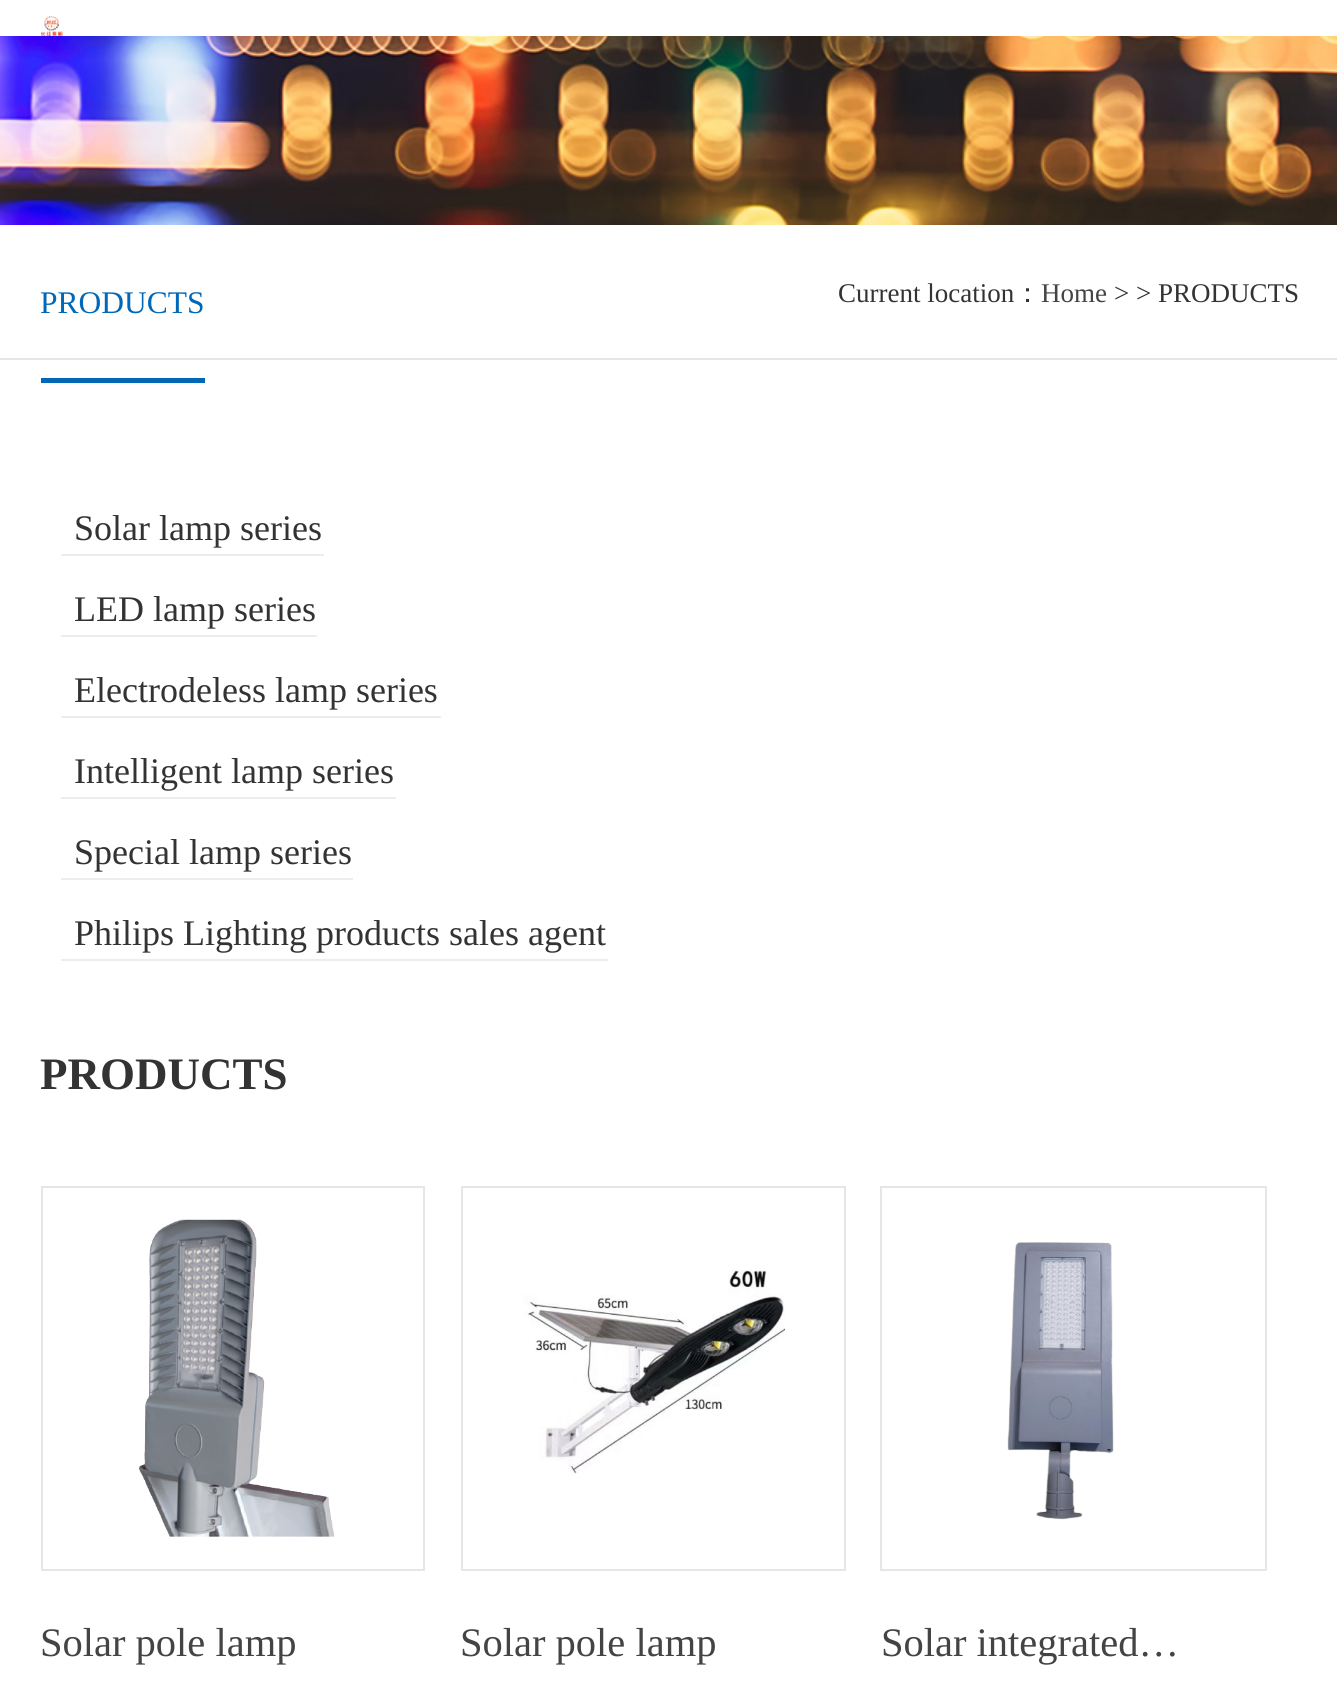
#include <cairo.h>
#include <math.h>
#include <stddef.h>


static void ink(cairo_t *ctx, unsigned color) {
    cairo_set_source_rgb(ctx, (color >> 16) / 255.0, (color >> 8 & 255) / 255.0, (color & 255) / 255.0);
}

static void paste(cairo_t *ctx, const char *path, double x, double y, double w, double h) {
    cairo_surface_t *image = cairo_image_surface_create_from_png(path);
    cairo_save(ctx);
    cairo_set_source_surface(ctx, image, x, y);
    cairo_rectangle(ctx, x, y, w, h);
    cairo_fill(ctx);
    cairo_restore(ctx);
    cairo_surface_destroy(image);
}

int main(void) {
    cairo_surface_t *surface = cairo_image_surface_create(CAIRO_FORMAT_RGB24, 1337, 1689);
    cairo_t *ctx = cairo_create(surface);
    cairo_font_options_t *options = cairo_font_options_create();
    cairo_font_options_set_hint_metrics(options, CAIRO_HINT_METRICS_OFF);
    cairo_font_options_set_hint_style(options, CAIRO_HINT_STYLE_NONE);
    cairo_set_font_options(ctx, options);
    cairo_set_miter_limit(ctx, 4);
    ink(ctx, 0xFFFFFF);
    cairo_paint(ctx);
    paste(ctx, "media/1.png", 41, 15, 22, 21);
    paste(ctx, "media/2.png", 0, 36, 1337, 189);
    ink(ctx, 0xE6E6E6);
    cairo_rectangle(ctx, 0, 358, 1337, 2);
    cairo_fill(ctx);
    ink(ctx, 0x0168B7);
    cairo_rectangle(ctx, 41, 378, 164, 5);
    cairo_fill(ctx);
    cairo_select_font_face(ctx, "Liberation Serif", CAIRO_FONT_SLANT_NORMAL, CAIRO_FONT_WEIGHT_NORMAL);
    cairo_set_font_size(ctx, 31.5);
    cairo_move_to(ctx, 40, 313);
    cairo_show_text(ctx, "PRODUCTS");
    cairo_set_font_size(ctx, 27);
    ink(ctx, 0x333333);
    cairo_move_to(ctx, 838, 302);
    cairo_show_text(ctx, "Current location");
    cairo_select_font_face(ctx, "WenQuanYi Zen Hei Medium", CAIRO_FONT_SLANT_NORMAL, CAIRO_FONT_WEIGHT_NORMAL);
    cairo_move_to(ctx, 1014, 302);
    cairo_show_text(ctx, "：");
    cairo_select_font_face(ctx, "Liberation Serif", CAIRO_FONT_SLANT_NORMAL, CAIRO_FONT_WEIGHT_NORMAL);
    ink(ctx, 0x444444);
    cairo_move_to(ctx, 1041, 302);
    cairo_show_text(ctx, "Home");
    ink(ctx, 0x333333);
    cairo_move_to(ctx, 1114, 302);
    cairo_show_text(ctx, "> > PRODUCTS");
    ink(ctx, 0xEDEDEE);
    cairo_rectangle(ctx, 61, 554, 263, 2);
    cairo_fill(ctx);
    cairo_set_font_size(ctx, 36);
    ink(ctx, 0x333333);
    cairo_move_to(ctx, 74, 540);
    cairo_show_text(ctx, "Solar lamp series");
    ink(ctx, 0xEDEDEE);
    cairo_rectangle(ctx, 61, 635, 256, 2);
    cairo_fill(ctx);
    ink(ctx, 0x333333);
    cairo_move_to(ctx, 74, 621);
    cairo_show_text(ctx, "LED lamp series");
    ink(ctx, 0xEDEDEE);
    cairo_rectangle(ctx, 61, 716, 380, 2);
    cairo_fill(ctx);
    ink(ctx, 0x333333);
    cairo_move_to(ctx, 74, 702);
    cairo_show_text(ctx, "Electrodeless lamp series");
    ink(ctx, 0xEDEDEE);
    cairo_rectangle(ctx, 61, 797, 335, 2);
    cairo_fill(ctx);
    ink(ctx, 0x333333);
    cairo_move_to(ctx, 74, 783);
    cairo_show_text(ctx, "Intelligent lamp series");
    ink(ctx, 0xEDEDEE);
    cairo_rectangle(ctx, 61, 878, 292, 2);
    cairo_fill(ctx);
    ink(ctx, 0x333333);
    cairo_move_to(ctx, 74, 864);
    cairo_show_text(ctx, "Special lamp series");
    ink(ctx, 0xEDEDEE);
    cairo_rectangle(ctx, 61, 959, 547, 2);
    cairo_fill(ctx);
    ink(ctx, 0x333333);
    cairo_move_to(ctx, 74, 945);
    cairo_show_text(ctx, "Philips Lighting products sales agent");
    cairo_select_font_face(ctx, "Liberation Serif", CAIRO_FONT_SLANT_NORMAL, CAIRO_FONT_WEIGHT_BOLD);
    cairo_set_font_size(ctx, 45);
    cairo_move_to(ctx, 40, 1089);
    cairo_show_text(ctx, "PRODUCTS");
    cairo_rectangle(ctx, 42, 1187, 382, 383);
    ink(ctx, 0xE6E6E6);
    cairo_stroke(ctx);
    paste(ctx, "media/3.png", 139, 1219, 196, 318);
    cairo_select_font_face(ctx, "Liberation Serif", CAIRO_FONT_SLANT_NORMAL, CAIRO_FONT_WEIGHT_NORMAL);
    cairo_set_font_size(ctx, 40.5);
    ink(ctx, 0x444444);
    cairo_move_to(ctx, 40, 1656);
    cairo_show_text(ctx, "Solar pole lamp");
    cairo_rectangle(ctx, 462, 1187, 383, 383);
    ink(ctx, 0xE6E6E6);
    cairo_stroke(ctx);
    paste(ctx, "media/4.png", 523, 1270, 262, 204);
    ink(ctx, 0x444444);
    cairo_move_to(ctx, 460, 1656);
    cairo_show_text(ctx, "Solar pole lamp");
    cairo_rectangle(ctx, 881, 1187, 385, 383);
    ink(ctx, 0xE6E6E6);
    cairo_stroke(ctx);
    paste(ctx, "media/5.png", 1007, 1242, 107, 278);
    ink(ctx, 0x444444);
    cairo_move_to(ctx, 881, 1656);
    cairo_show_text(ctx, "Solar integrated…");
    cairo_surface_write_to_png(surface, "image.png");
    cairo_font_options_destroy(options);
    cairo_destroy(ctx);
    cairo_surface_destroy(surface);
    return 0;
}
